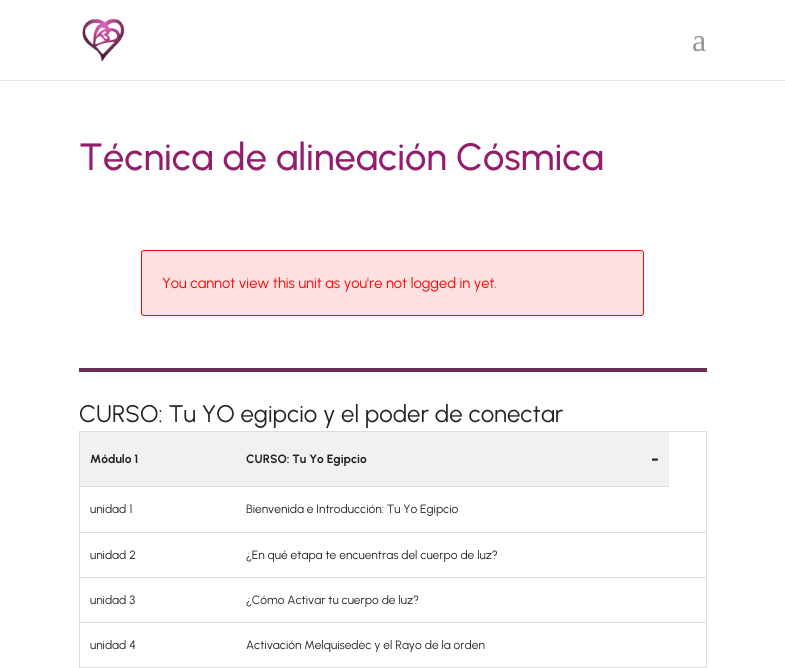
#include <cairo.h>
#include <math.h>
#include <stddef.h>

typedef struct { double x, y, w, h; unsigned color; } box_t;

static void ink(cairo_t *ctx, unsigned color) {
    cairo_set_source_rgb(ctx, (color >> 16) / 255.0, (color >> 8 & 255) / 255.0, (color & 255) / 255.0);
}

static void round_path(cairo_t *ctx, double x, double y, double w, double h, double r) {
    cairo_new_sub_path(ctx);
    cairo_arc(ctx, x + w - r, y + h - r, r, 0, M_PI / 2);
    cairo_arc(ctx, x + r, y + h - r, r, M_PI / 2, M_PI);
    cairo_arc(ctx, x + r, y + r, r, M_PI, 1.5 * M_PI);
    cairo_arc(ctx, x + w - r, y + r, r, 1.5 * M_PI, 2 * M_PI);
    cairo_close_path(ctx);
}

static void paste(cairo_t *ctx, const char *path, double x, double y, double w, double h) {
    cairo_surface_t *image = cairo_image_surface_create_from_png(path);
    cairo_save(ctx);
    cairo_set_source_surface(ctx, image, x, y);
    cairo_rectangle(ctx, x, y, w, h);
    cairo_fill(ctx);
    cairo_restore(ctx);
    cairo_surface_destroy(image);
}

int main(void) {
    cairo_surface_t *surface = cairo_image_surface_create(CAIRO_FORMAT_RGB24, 785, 668);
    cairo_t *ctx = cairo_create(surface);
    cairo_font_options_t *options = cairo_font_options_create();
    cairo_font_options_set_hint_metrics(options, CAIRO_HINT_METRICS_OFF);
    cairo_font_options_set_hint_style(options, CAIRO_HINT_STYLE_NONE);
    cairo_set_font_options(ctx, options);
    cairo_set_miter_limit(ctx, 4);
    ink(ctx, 0xFFFFFF);
    cairo_paint(ctx);
    ink(ctx, 0xE6E6E6);
    cairo_rectangle(ctx, 0, 80, 785, 1);
    cairo_fill(ctx);
    paste(ctx, "media/1.png", 82, 18, 43, 44);
    cairo_select_font_face(ctx, "Liberation Serif", CAIRO_FONT_SLANT_NORMAL, CAIRO_FONT_WEIGHT_NORMAL);
    cairo_set_font_size(ctx, 32);
    ink(ctx, 0x959595);
    cairo_move_to(ctx, 692, 51);
    cairo_show_text(ctx, "a");
    cairo_select_font_face(ctx, "Urbanist Medium", CAIRO_FONT_SLANT_NORMAL, CAIRO_FONT_WEIGHT_NORMAL);
    cairo_set_font_size(ctx, 38);
    ink(ctx, 0x931F6C);
    cairo_move_to(ctx, 79, 170);
    cairo_show_text(ctx, "Técnica de alineación Cósmica");
    ink(ctx, 0xFDE0E0);
    round_path(ctx, 141.5, 250.5, 502, 65, 2.5);
    cairo_fill_preserve(ctx);
    ink(ctx, 0xFF0000);
    cairo_set_line_width(ctx, 1);
    cairo_stroke(ctx);
    cairo_select_font_face(ctx, "Urbanist", CAIRO_FONT_SLANT_NORMAL, CAIRO_FONT_WEIGHT_NORMAL);
    cairo_set_font_size(ctx, 14.7);
    cairo_move_to(ctx, 162, 288);
    cairo_show_text(ctx, "You cannot view this unit as you're not logged in yet.");
    ink(ctx, 0x6A2E57);
    cairo_rectangle(ctx, 79, 368, 628, 4);
    cairo_fill(ctx);
    cairo_set_font_size(ctx, 24);
    ink(ctx, 0x232323);
    cairo_move_to(ctx, 79, 422);
    cairo_show_text(ctx, "CURSO: Tu YO egipcio y el poder de conectar");
    {
        static const box_t items[] = {
            {79, 431, 628, 1, 0xDDDDDD},
            {706, 431, 1, 237, 0xDDDDDD},
            {79, 431, 1, 237, 0xDDDDDD},
            {80, 432, 589, 54, 0xF1F1F1},
        };
        for (size_t i = 0; i < sizeof items / sizeof *items; i++) {
            ink(ctx, items[i].color);
            cairo_rectangle(ctx, items[i].x, items[i].y, items[i].w, items[i].h);
            cairo_fill(ctx);
        }
    }
    cairo_select_font_face(ctx, "Urbanist", CAIRO_FONT_SLANT_NORMAL, CAIRO_FONT_WEIGHT_BOLD);
    cairo_set_font_size(ctx, 12);
    ink(ctx, 0x232323);
    cairo_move_to(ctx, 90, 463);
    cairo_show_text(ctx, "Módulo 1");
    cairo_move_to(ctx, 246, 463);
    cairo_show_text(ctx, "CURSO: Tu Yo Egipcio");
    ink(ctx, 0xDDDDDD);
    cairo_rectangle(ctx, 79, 486, 590, 1);
    cairo_fill(ctx);
    cairo_set_font_size(ctx, 18);
    ink(ctx, 0x232323);
    cairo_move_to(ctx, 651, 465);
    cairo_show_text(ctx, "-");
    cairo_select_font_face(ctx, "Urbanist", CAIRO_FONT_SLANT_NORMAL, CAIRO_FONT_WEIGHT_NORMAL);
    cairo_set_font_size(ctx, 12);
    cairo_move_to(ctx, 90, 513);
    cairo_show_text(ctx, "unidad 1");
    cairo_move_to(ctx, 246, 513);
    cairo_show_text(ctx, "Bienvenida e Introducción: Tu Yo Egipcio");
    ink(ctx, 0xDDDDDD);
    cairo_rectangle(ctx, 79, 532, 628, 1);
    cairo_fill(ctx);
    ink(ctx, 0x232323);
    cairo_move_to(ctx, 90, 559);
    cairo_show_text(ctx, "unidad 2");
    cairo_move_to(ctx, 246, 559);
    cairo_show_text(ctx, "¿En qué etapa te encuentras del cuerpo de luz?");
    ink(ctx, 0xDDDDDD);
    cairo_rectangle(ctx, 79, 577, 628, 1);
    cairo_fill(ctx);
    ink(ctx, 0x232323);
    cairo_move_to(ctx, 90, 604);
    cairo_show_text(ctx, "unidad 3");
    cairo_move_to(ctx, 246, 604);
    cairo_show_text(ctx, "¿Cómo Activar tu cuerpo de luz?");
    ink(ctx, 0xDDDDDD);
    cairo_rectangle(ctx, 79, 622, 628, 1);
    cairo_fill(ctx);
    ink(ctx, 0x232323);
    cairo_move_to(ctx, 90, 649);
    cairo_show_text(ctx, "unidad 4");
    cairo_move_to(ctx, 246, 649);
    cairo_show_text(ctx, "Activación Melquisedec y el Rayo de la orden");
    ink(ctx, 0xDDDDDD);
    cairo_rectangle(ctx, 79, 667, 628, 1);
    cairo_fill(ctx);
    cairo_surface_write_to_png(surface, "image.png");
    cairo_font_options_destroy(options);
    cairo_destroy(ctx);
    cairo_surface_destroy(surface);
    return 0;
}
